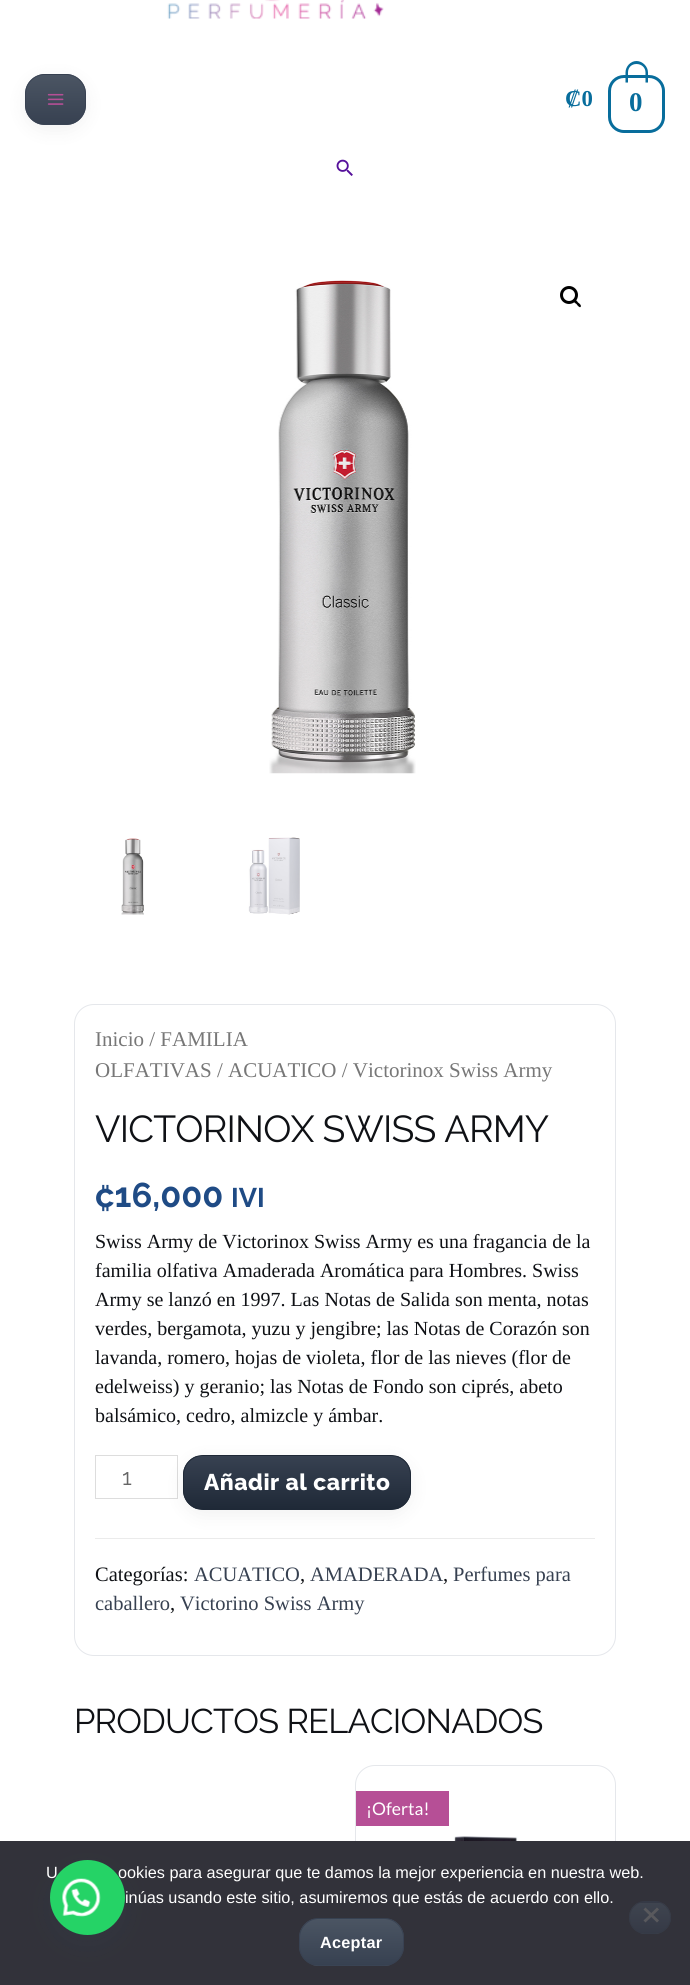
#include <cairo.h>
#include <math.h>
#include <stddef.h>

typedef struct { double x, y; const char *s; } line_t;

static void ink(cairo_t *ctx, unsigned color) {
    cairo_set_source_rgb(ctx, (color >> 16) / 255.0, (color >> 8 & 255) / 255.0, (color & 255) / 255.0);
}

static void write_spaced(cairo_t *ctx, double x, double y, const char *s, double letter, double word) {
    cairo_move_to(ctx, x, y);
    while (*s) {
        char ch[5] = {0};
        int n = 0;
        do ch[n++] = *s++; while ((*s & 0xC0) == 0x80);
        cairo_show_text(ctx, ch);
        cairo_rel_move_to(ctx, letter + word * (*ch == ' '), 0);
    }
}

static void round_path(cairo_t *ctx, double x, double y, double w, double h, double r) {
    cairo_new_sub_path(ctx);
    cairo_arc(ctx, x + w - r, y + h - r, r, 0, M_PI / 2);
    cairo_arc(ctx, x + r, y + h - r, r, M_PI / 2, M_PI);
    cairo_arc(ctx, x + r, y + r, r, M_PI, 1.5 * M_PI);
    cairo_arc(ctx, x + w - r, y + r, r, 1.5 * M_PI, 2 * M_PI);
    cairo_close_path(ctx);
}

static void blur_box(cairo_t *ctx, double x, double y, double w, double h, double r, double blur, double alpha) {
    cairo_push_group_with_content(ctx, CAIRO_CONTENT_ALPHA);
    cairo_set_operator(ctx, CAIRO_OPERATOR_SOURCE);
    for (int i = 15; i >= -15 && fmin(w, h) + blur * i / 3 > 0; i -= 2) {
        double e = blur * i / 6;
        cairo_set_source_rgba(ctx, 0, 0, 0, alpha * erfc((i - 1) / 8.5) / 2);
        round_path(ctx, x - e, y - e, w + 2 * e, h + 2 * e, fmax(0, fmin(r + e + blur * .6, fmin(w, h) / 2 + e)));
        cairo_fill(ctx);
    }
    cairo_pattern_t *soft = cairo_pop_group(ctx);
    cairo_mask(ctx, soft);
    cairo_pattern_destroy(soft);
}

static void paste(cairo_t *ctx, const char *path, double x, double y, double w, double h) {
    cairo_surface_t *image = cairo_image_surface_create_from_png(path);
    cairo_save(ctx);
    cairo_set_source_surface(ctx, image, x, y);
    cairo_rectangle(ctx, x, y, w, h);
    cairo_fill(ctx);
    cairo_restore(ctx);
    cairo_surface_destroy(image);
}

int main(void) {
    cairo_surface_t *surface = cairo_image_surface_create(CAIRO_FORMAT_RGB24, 690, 1985);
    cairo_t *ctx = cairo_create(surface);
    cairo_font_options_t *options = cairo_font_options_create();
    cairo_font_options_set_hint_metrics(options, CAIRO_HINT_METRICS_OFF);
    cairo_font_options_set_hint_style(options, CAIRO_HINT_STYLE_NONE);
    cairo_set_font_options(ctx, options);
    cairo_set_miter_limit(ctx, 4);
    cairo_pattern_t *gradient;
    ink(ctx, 0xFFFFFF);
    cairo_paint(ctx);
    paste(ctx, "media/1.png", 167, 0, 217, 19);
    ink(ctx, 0x000000);
    blur_box(ctx, 25, 79, 61, 51, 20, 10, 0.06);
    cairo_save(ctx);
    round_path(ctx, 25, 74, 61, 51, 20);
    cairo_clip(ctx);
    gradient = cairo_pattern_create_linear(56, 26, 56, 75);
    cairo_pattern_add_color_stop_rgba(gradient, 0, 0.294, 0.333, 0.388, 1);
    cairo_pattern_add_color_stop_rgba(gradient, 1, 0.216, 0.255, 0.318, 1);
    cairo_set_source(ctx, gradient);
    cairo_pattern_destroy(gradient);
    cairo_rectangle(ctx, 39, 74, 33, 1);
    cairo_fill(ctx);
    gradient = cairo_pattern_create_linear(56, 75, 56, 124);
    cairo_pattern_add_color_stop_rgba(gradient, 0, 0.294, 0.333, 0.388, 1);
    cairo_pattern_add_color_stop_rgba(gradient, 1, 0.216, 0.255, 0.318, 1);
    cairo_set_source(ctx, gradient);
    cairo_pattern_destroy(gradient);
    cairo_rectangle(ctx, 25, 75, 61, 49);
    cairo_fill(ctx);
    gradient = cairo_pattern_create_linear(56, 124, 56, 173);
    cairo_pattern_add_color_stop_rgba(gradient, 0, 0.294, 0.333, 0.388, 1);
    cairo_pattern_add_color_stop_rgba(gradient, 1, 0.216, 0.255, 0.318, 1);
    cairo_set_source(ctx, gradient);
    cairo_pattern_destroy(gradient);
    cairo_rectangle(ctx, 39, 124, 33, 1);
    cairo_fill(ctx);
    cairo_restore(ctx);
    round_path(ctx, 25.5, 74.5, 60, 50, 19.5);
    cairo_set_source_rgba(ctx, 0.216, 0.255, 0.318, 0.85);
    cairo_set_line_width(ctx, 1);
    cairo_stroke(ctx);
    paste(ctx, "media/2.png", 47, 93, 17, 12);
    cairo_select_font_face(ctx, "Liberation Serif", CAIRO_FONT_SLANT_NORMAL, CAIRO_FONT_WEIGHT_BOLD);
    cairo_set_font_size(ctx, 22.75);
    ink(ctx, 0x086D9C);
    cairo_move_to(ctx, 565, 106);
    cairo_show_text(ctx, "₡0");
    round_path(ctx, 609.5, 76.5, 54, 55, 14.5);
    cairo_set_line_width(ctx, 3);
    cairo_stroke(ctx);
    cairo_set_fill_rule(ctx, CAIRO_FILL_RULE_EVEN_ODD);
    cairo_new_path(ctx);
    cairo_move_to(ctx, 636.5, 61);
    cairo_curve_to(ctx, 642.5, 61, 648, 66.5, 648, 72.5);
    cairo_line_to(ctx, 648, 82.5);
    cairo_line_to(ctx, 625.5, 82.5);
    cairo_line_to(ctx, 625.5, 72.5);
    cairo_curve_to(ctx, 625.5, 66.5, 630.5, 61, 636.5, 61);
    cairo_close_path(ctx);
    cairo_move_to(ctx, 636.5, 64);
    cairo_curve_to(ctx, 641.5, 64, 645.5, 67.5, 645.5, 72.5);
    cairo_line_to(ctx, 645.5, 82.5);
    cairo_line_to(ctx, 628, 82.5);
    cairo_line_to(ctx, 628, 72.5);
    cairo_curve_to(ctx, 628, 67.5, 631.5, 64, 636.5, 64);
    cairo_close_path(ctx);
    cairo_fill(ctx);
    cairo_set_font_size(ctx, 27);
    cairo_move_to(ctx, 629, 111);
    cairo_show_text(ctx, "0");
    paste(ctx, "media/3.png", 336, 159, 17, 17);
    paste(ctx, "media/4.png", 269, 280, 147, 494);
    cairo_arc(ctx, 569, 295, 7.5, 0, 2 * M_PI);
    ink(ctx, 0x000000);
    cairo_stroke(ctx);
    cairo_set_fill_rule(ctx, CAIRO_FILL_RULE_WINDING);
    cairo_new_path(ctx);
    cairo_move_to(ctx, 573.5, 299.5);
    cairo_curve_to(ctx, 575, 298.5, 577.5, 301.5, 578, 302.5);
    cairo_curve_to(ctx, 579, 303, 582, 305.5, 580.5, 307);
    cairo_curve_to(ctx, 579.5, 308, 577, 305, 576.5, 304);
    cairo_curve_to(ctx, 575.5, 303.5, 572, 301, 573.5, 299.5);
    cairo_close_path(ctx);
    cairo_fill(ctx);
    paste(ctx, "media/5.png", 121, 838, 23, 77);
    paste(ctx, "media/6.png", 248, 837, 52, 78);
    round_path(ctx, 74.5, 1004.5, 541, 651, 19.5);
    ink(ctx, 0xE5E7EB);
    cairo_set_line_width(ctx, 1);
    cairo_stroke(ctx);
    cairo_select_font_face(ctx, "Liberation Serif", CAIRO_FONT_SLANT_NORMAL, CAIRO_FONT_WEIGHT_NORMAL);
    cairo_set_font_size(ctx, 21);
    ink(ctx, 0x777777);
    cairo_move_to(ctx, 95, 1046);
    cairo_show_text(ctx, "Inicio / FAMILIA");
    cairo_move_to(ctx, 95, 1077);
    cairo_show_text(ctx, "OLFATIVAS / ACUATICO / Victorinox Swiss Army");
    cairo_select_font_face(ctx, "Raleway", CAIRO_FONT_SLANT_NORMAL, CAIRO_FONT_WEIGHT_NORMAL);
    cairo_set_font_size(ctx, 37.5);
    ink(ctx, 0x0F1115);
    write_spaced(ctx, 95, 1142, "VICTORINOX SWISS ARMY", -0.75, 0);
    cairo_select_font_face(ctx, "Raleway", CAIRO_FONT_SLANT_NORMAL, CAIRO_FONT_WEIGHT_BOLD);
    cairo_set_font_size(ctx, 34.25);
    ink(ctx, 0x1F4B85);
    cairo_move_to(ctx, 95, 1207);
    cairo_show_text(ctx, "₡16,000");
    cairo_set_font_size(ctx, 27);
    cairo_move_to(ctx, 231, 1207);
    cairo_show_text(ctx, "IVI");
    cairo_select_font_face(ctx, "Liberation Serif", CAIRO_FONT_SLANT_NORMAL, CAIRO_FONT_WEIGHT_NORMAL);
    cairo_set_font_size(ctx, 20);
    ink(ctx, 0x0F1115);
    {
        static const line_t items[] = {
            {95, 1248, "Swiss Army de Victorinox Swiss Army es una fragancia de la"},
            {95, 1277, "familia olfativa Amaderada Aromática para Hombres. Swiss"},
            {95, 1306, "Army se lanzó en 1997. Las Notas de Salida son menta, notas"},
            {95, 1335, "verdes, bergamota, yuzu y jengibre; las Notas de Corazón son"},
            {95, 1364, "lavanda, romero, hojas de violeta, flor de las nieves (flor de"},
            {95, 1393, "edelweiss) y geranio; las Notas de Fondo son ciprés, abeto"},
            {95, 1422, "balsámico, cedro, almizcle y ámbar."},
        };
        for (size_t i = 0; i < sizeof items / sizeof *items; i++) {
            cairo_move_to(ctx, items[i].x, items[i].y);
            cairo_show_text(ctx, items[i].s);
        }
    }
    cairo_rectangle(ctx, 95.5, 1455.5, 82, 43);
    ink(ctx, 0xDDDDDD);
    cairo_stroke(ctx);
    cairo_select_font_face(ctx, "Raleway", CAIRO_FONT_SLANT_NORMAL, CAIRO_FONT_WEIGHT_NORMAL);
    cairo_set_font_size(ctx, 22.75);
    ink(ctx, 0x666666);
    cairo_move_to(ctx, 122, 1485);
    cairo_show_text(ctx, "1");
    ink(ctx, 0xEBEBEB);
    cairo_rectangle(ctx, 95, 1538, 500, 1);
    cairo_fill(ctx);
    ink(ctx, 0x000000);
    blur_box(ctx, 183, 1460, 228, 55, 20, 10, 0.06);
    cairo_save(ctx);
    round_path(ctx, 183, 1455, 228, 55, 20);
    cairo_clip(ctx);
    gradient = cairo_pattern_create_linear(297, 1456, 297, 1509);
    cairo_pattern_add_color_stop_rgba(gradient, 0, 0.216, 0.255, 0.318, 1);
    cairo_pattern_add_color_stop_rgba(gradient, 1, 0.122, 0.161, 0.216, 1);
    cairo_set_source(ctx, gradient);
    cairo_pattern_destroy(gradient);
    cairo_rectangle(ctx, 183, 1456, 228, 53);
    cairo_fill(ctx);
    cairo_restore(ctx);
    round_path(ctx, 183.5, 1455.5, 227, 54, 19.5);
    ink(ctx, 0x1F2937);
    cairo_stroke(ctx);
    cairo_select_font_face(ctx, "Raleway ExtraBold", CAIRO_FONT_SLANT_NORMAL, CAIRO_FONT_WEIGHT_NORMAL);
    ink(ctx, 0xFFFFFF);
    write_spaced(ctx, 204, 1490, "Añadir al carrito", 0.5, 0);
    cairo_select_font_face(ctx, "Liberation Serif", CAIRO_FONT_SLANT_NORMAL, CAIRO_FONT_WEIGHT_NORMAL);
    cairo_set_font_size(ctx, 20.5);
    ink(ctx, 0x0F1115);
    cairo_move_to(ctx, 95, 1581);
    cairo_show_text(ctx, "Categorías:");
    ink(ctx, 0x374151);
    cairo_move_to(ctx, 194, 1581);
    cairo_show_text(ctx, "ACUATICO");
    ink(ctx, 0x0F1115);
    cairo_move_to(ctx, 300, 1581);
    cairo_show_text(ctx, ",");
    ink(ctx, 0x374151);
    cairo_move_to(ctx, 310, 1581);
    cairo_show_text(ctx, "AMADERADA");
    ink(ctx, 0x0F1115);
    cairo_move_to(ctx, 443, 1581);
    cairo_show_text(ctx, ",");
    ink(ctx, 0x374151);
    cairo_move_to(ctx, 453, 1581);
    cairo_show_text(ctx, "Perfumes para");
    cairo_move_to(ctx, 95, 1610);
    cairo_show_text(ctx, "caballero");
    ink(ctx, 0x0F1115);
    cairo_move_to(ctx, 170, 1610);
    cairo_show_text(ctx, ",");
    ink(ctx, 0x374151);
    cairo_move_to(ctx, 180, 1610);
    cairo_show_text(ctx, "Victorino Swiss Army");
    cairo_select_font_face(ctx, "Raleway", CAIRO_FONT_SLANT_NORMAL, CAIRO_FONT_WEIGHT_NORMAL);
    cairo_set_font_size(ctx, 34.25);
    ink(ctx, 0x0F1115);
    write_spaced(ctx, 74, 1733, "PRODUCTOS RELACIONADOS", -0.7, 0);
    round_path(ctx, 355.5, 1765.5, 260, 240, 19.5);
    ink(ctx, 0xE5E7EB);
    cairo_stroke(ctx);
    ink(ctx, 0xB64F96);
    cairo_rectangle(ctx, 356, 1791, 93, 35);
    cairo_fill(ctx);
    cairo_select_font_face(ctx, "Lato", CAIRO_FONT_SLANT_NORMAL, CAIRO_FONT_WEIGHT_NORMAL);
    cairo_set_font_size(ctx, 17.5);
    ink(ctx, 0xFFFFFF);
    cairo_move_to(ctx, 366, 1815);
    cairo_show_text(ctx, "¡Oferta!");
    paste(ctx, "media/7.png", 453, 1836, 66, 5);
    ink(ctx, 0x32323A);
    cairo_rectangle(ctx, 0, 1841, 690, 144);
    cairo_fill(ctx);
    ink(ctx, 0x2D3E4F);
    blur_box(ctx, 56, 1876, 63, 63, 31.5, 15.5, 0.3);
    cairo_select_font_face(ctx, "Liberation Sans", CAIRO_FONT_SLANT_NORMAL, CAIRO_FONT_WEIGHT_NORMAL);
    cairo_set_font_size(ctx, 16.25);
    ink(ctx, 0xFFFFFF);
    cairo_move_to(ctx, 46, 1878);
    cairo_show_text(ctx, "U");
    cairo_move_to(ctx, 118, 1878);
    cairo_show_text(ctx, "ookies para asegurar que te damos la mejor experiencia en nuestra web.");
    ink(ctx, 0x25D366);
    cairo_new_path(ctx);
    cairo_arc(ctx, 87.5, 1897.5, 37.5, 0, 2 * M_PI);
    cairo_fill(ctx);
    paste(ctx, "media/8.png", 62, 1878, 39, 39);
    ink(ctx, 0xFFFFFF);
    cairo_move_to(ctx, 125, 1903);
    cairo_show_text(ctx, "inúas usando este sitio, asumiremos que estás de acuerdo con ello.");
    cairo_save(ctx);
    round_path(ctx, 629, 1901, 42, 33, 16.5);
    cairo_clip(ctx);
    gradient = cairo_pattern_create_linear(650, 1873, 650, 1903);
    cairo_pattern_add_color_stop_rgba(gradient, 0, 0.247, 0.267, 0.31, 1);
    cairo_pattern_add_color_stop_rgba(gradient, 1, 0.208, 0.227, 0.275, 1);
    cairo_set_source(ctx, gradient);
    cairo_pattern_destroy(gradient);
    cairo_rectangle(ctx, 629, 1901, 42, 2);
    cairo_fill(ctx);
    gradient = cairo_pattern_create_linear(650, 1903, 650, 1933);
    cairo_pattern_add_color_stop_rgba(gradient, 0, 0.247, 0.267, 0.31, 1);
    cairo_pattern_add_color_stop_rgba(gradient, 1, 0.208, 0.227, 0.275, 1);
    cairo_set_source(ctx, gradient);
    cairo_pattern_destroy(gradient);
    cairo_rectangle(ctx, 629, 1903, 42, 30);
    cairo_fill(ctx);
    gradient = cairo_pattern_create_linear(650, 1933, 650, 1963);
    cairo_pattern_add_color_stop_rgba(gradient, 0, 0.247, 0.267, 0.31, 1);
    cairo_pattern_add_color_stop_rgba(gradient, 1, 0.208, 0.227, 0.275, 1);
    cairo_set_source(ctx, gradient);
    cairo_pattern_destroy(gradient);
    cairo_rectangle(ctx, 640, 1933, 20, 1);
    cairo_fill(ctx);
    cairo_restore(ctx);
    round_path(ctx, 629.5, 1901.5, 41, 32, 16);
    cairo_set_source_rgba(ctx, 0.208, 0.227, 0.275, 0.85);
    cairo_stroke(ctx);
    ink(ctx, 0x59595D);
    cairo_new_path(ctx);
    cairo_move_to(ctx, 657, 1907.5);
    cairo_line_to(ctx, 659, 1909.5);
    cairo_line_to(ctx, 645.5, 1922.5);
    cairo_line_to(ctx, 643.5, 1920.5);
    cairo_close_path(ctx);
    cairo_fill(ctx);
    cairo_new_path(ctx);
    cairo_move_to(ctx, 643.5, 1909.5);
    cairo_line_to(ctx, 645.5, 1907.5);
    cairo_line_to(ctx, 659, 1920.5);
    cairo_line_to(ctx, 657, 1922.5);
    cairo_close_path(ctx);
    cairo_fill(ctx);
    cairo_save(ctx);
    round_path(ctx, 299, 1918, 105, 48, 20);
    cairo_clip(ctx);
    gradient = cairo_pattern_create_linear(351, 1873, 351, 1919);
    cairo_pattern_add_color_stop_rgba(gradient, 0, 0.294, 0.333, 0.388, 1);
    cairo_pattern_add_color_stop_rgba(gradient, 1, 0.216, 0.255, 0.318, 1);
    cairo_set_source(ctx, gradient);
    cairo_pattern_destroy(gradient);
    cairo_rectangle(ctx, 313, 1918, 77, 1);
    cairo_fill(ctx);
    gradient = cairo_pattern_create_linear(351, 1919, 351, 1965);
    cairo_pattern_add_color_stop_rgba(gradient, 0, 0.294, 0.333, 0.388, 1);
    cairo_pattern_add_color_stop_rgba(gradient, 1, 0.216, 0.255, 0.318, 1);
    cairo_set_source(ctx, gradient);
    cairo_pattern_destroy(gradient);
    cairo_rectangle(ctx, 299, 1919, 105, 46);
    cairo_fill(ctx);
    gradient = cairo_pattern_create_linear(351, 1965, 351, 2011);
    cairo_pattern_add_color_stop_rgba(gradient, 0, 0.294, 0.333, 0.388, 1);
    cairo_pattern_add_color_stop_rgba(gradient, 1, 0.216, 0.255, 0.318, 1);
    cairo_set_source(ctx, gradient);
    cairo_pattern_destroy(gradient);
    cairo_rectangle(ctx, 313, 1965, 77, 1);
    cairo_fill(ctx);
    cairo_restore(ctx);
    round_path(ctx, 299.5, 1918.5, 104, 47, 19.5);
    cairo_set_source_rgba(ctx, 0.216, 0.255, 0.318, 0.85);
    cairo_stroke(ctx);
    cairo_select_font_face(ctx, "Liberation Sans", CAIRO_FONT_SLANT_NORMAL, CAIRO_FONT_WEIGHT_BOLD);
    ink(ctx, 0xFFFFFF);
    write_spaced(ctx, 320, 1948, "Aceptar", 0.25, 0);
    cairo_surface_write_to_png(surface, "image.png");
    cairo_font_options_destroy(options);
    cairo_destroy(ctx);
    cairo_surface_destroy(surface);
    return 0;
}
